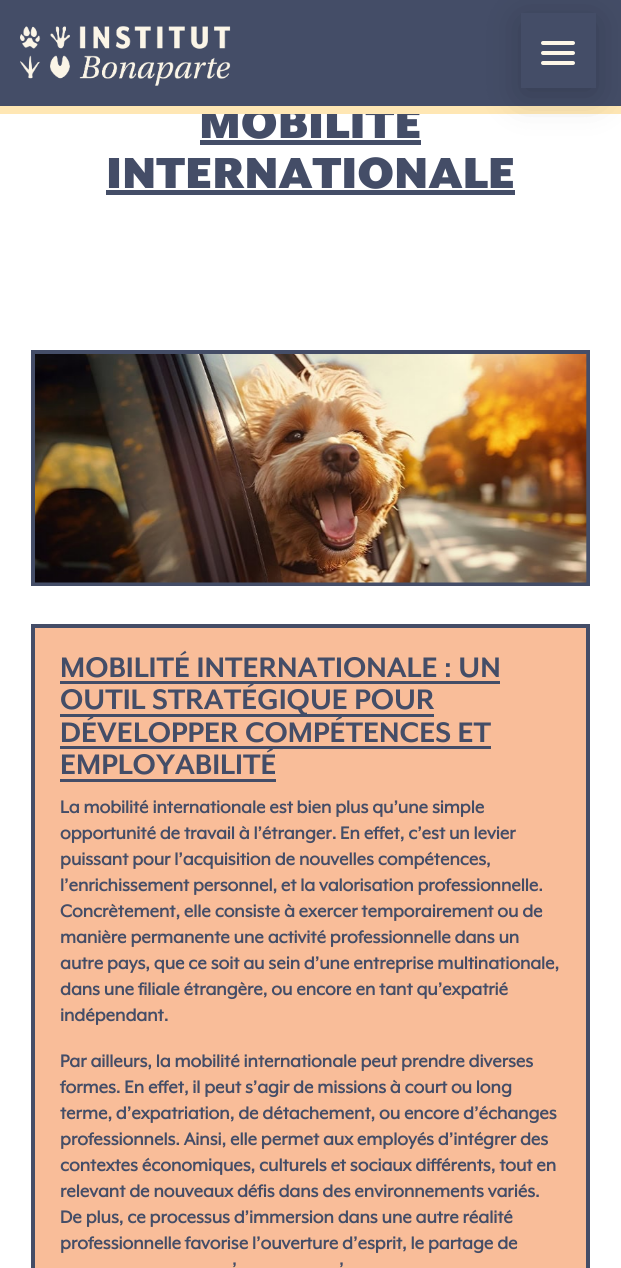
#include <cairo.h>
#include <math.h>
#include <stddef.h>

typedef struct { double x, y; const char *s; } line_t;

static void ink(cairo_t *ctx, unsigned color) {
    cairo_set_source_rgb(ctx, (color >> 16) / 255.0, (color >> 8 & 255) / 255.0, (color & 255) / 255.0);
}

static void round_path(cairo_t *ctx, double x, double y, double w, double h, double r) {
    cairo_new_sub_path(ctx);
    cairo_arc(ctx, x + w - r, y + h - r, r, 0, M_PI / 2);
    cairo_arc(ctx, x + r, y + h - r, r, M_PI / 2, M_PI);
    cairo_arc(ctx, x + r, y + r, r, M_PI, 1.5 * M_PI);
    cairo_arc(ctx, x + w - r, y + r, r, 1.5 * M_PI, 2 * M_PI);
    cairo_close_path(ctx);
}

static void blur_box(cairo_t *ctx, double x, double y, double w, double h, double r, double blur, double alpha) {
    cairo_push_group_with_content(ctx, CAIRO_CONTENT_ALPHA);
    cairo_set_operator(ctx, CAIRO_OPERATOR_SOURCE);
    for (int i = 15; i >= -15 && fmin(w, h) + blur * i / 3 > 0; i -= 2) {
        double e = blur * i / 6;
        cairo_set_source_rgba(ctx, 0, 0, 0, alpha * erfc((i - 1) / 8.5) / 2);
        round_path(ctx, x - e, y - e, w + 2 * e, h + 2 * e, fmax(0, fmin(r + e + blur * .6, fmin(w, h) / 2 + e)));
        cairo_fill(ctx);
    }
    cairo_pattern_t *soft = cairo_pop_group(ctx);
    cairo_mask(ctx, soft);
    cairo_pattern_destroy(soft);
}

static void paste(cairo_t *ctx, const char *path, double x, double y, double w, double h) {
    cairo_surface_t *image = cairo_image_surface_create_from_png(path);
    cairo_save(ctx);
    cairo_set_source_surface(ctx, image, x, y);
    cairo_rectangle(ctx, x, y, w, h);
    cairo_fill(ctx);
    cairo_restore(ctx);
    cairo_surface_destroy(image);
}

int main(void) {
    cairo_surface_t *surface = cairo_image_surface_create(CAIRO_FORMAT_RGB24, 621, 1268);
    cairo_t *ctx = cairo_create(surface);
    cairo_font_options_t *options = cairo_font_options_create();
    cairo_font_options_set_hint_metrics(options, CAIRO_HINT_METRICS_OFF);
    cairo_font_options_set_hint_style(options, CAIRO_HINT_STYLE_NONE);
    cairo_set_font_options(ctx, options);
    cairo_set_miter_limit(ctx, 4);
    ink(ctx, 0xFFFFFF);
    cairo_paint(ctx);
    cairo_select_font_face(ctx, "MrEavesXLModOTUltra", CAIRO_FONT_SLANT_NORMAL, CAIRO_FONT_WEIGHT_NORMAL);
    cairo_set_font_size(ctx, 50);
    ink(ctx, 0x444D67);
    cairo_move_to(ctx, 199, 138);
    cairo_show_text(ctx, "MOBILITÉ");
    ink(ctx, 0xFFE7B4);
    cairo_rectangle(ctx, 0, 106, 621, 8);
    cairo_fill(ctx);
    ink(ctx, 0x444D67);
    cairo_rectangle(ctx, 0, 0, 621, 106);
    cairo_fill(ctx);
    paste(ctx, "media/1.png", 20, 26, 211, 60);
    cairo_save(ctx);
    cairo_set_fill_rule(ctx, CAIRO_FILL_RULE_EVEN_ODD);
    cairo_new_path(ctx);
    cairo_move_to(ctx, 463, 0);
    cairo_line_to(ctx, 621, 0);
    cairo_line_to(ctx, 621, 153);
    cairo_line_to(ctx, 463, 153);
    cairo_close_path(ctx);
    cairo_move_to(ctx, 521, 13);
    cairo_line_to(ctx, 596, 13);
    cairo_line_to(ctx, 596, 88);
    cairo_line_to(ctx, 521, 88);
    cairo_close_path(ctx);
    cairo_clip(ctx);
    ink(ctx, 0x000000);
    blur_box(ctx, 521, 20, 75, 75, 0, 19, 0.2);
    cairo_restore(ctx);
    ink(ctx, 0xFDF6E7);
    round_path(ctx, 541, 51, 34, 4, 2);
    cairo_fill(ctx);
    round_path(ctx, 541, 41, 34, 4, 2);
    cairo_fill(ctx);
    round_path(ctx, 541, 61, 34, 4, 2);
    cairo_fill(ctx);
    ink(ctx, 0x444D67);
    cairo_rectangle(ctx, 200, 140, 221, 5);
    cairo_fill(ctx);
    cairo_move_to(ctx, 106, 188);
    cairo_show_text(ctx, "INTERNATIONALE");
    cairo_rectangle(ctx, 106, 190, 409, 5);
    cairo_fill(ctx);
    cairo_rectangle(ctx, 33, 352, 555, 232);
    cairo_set_line_width(ctx, 4);
    cairo_stroke(ctx);
    paste(ctx, "media/2.png", 35, 354, 552, 229);
    ink(ctx, 0xF9BD99);
    cairo_rectangle(ctx, 33, 626, 555, 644);
    cairo_fill_preserve(ctx);
    ink(ctx, 0x444D67);
    cairo_stroke(ctx);
    cairo_select_font_face(ctx, "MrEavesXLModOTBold", CAIRO_FONT_SLANT_NORMAL, CAIRO_FONT_WEIGHT_BOLD);
    cairo_set_font_size(ctx, 32.5);
    cairo_move_to(ctx, 60, 677);
    cairo_show_text(ctx, "MOBILITÉ INTERNATIONALE : UN");
    cairo_rectangle(ctx, 60, 681, 440, 3);
    cairo_fill(ctx);
    cairo_rectangle(ctx, 60, 714, 374, 3);
    cairo_fill(ctx);
    cairo_move_to(ctx, 60, 709);
    cairo_show_text(ctx, "OUTIL STRATÉGIQUE POUR");
    cairo_move_to(ctx, 60, 742);
    cairo_show_text(ctx, "DÉVELOPPER COMPÉTENCES ET");
    cairo_rectangle(ctx, 60, 746, 431, 3);
    cairo_fill(ctx);
    cairo_move_to(ctx, 60, 774);
    cairo_show_text(ctx, "EMPLOYABILITÉ");
    cairo_rectangle(ctx, 60, 779, 216, 3);
    cairo_fill(ctx);
    cairo_select_font_face(ctx, "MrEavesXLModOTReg", CAIRO_FONT_SLANT_NORMAL, CAIRO_FONT_WEIGHT_BOLD);
    cairo_set_font_size(ctx, 20);
    {
        static const line_t items[] = {
            {60, 813, "La mobilité internationale est bien plus qu’une simple"},
            {60, 839, "opportunité de travail à l’étranger. En effet, c’est un levier"},
            {60, 865, "puissant pour l’acquisition de nouvelles compétences,"},
            {60, 891, "l’enrichissement personnel, et la valorisation professionnelle."},
            {60, 917, "Concrètement, elle consiste à exercer temporairement ou de"},
            {60, 943, "manière permanente une activité professionnelle dans un"},
            {60, 969, "autre pays, que ce soit au sein d’une entreprise multinationale,"},
            {60, 995, "dans une filiale étrangère, ou encore en tant qu’expatrié"},
            {60, 1021, "indépendant."},
            {60, 1067, "Par ailleurs, la mobilité internationale peut prendre diverses"},
            {60, 1093, "formes. En effet, il peut s’agir de missions à court ou long"},
            {60, 1119, "terme, d’expatriation, de détachement, ou encore d’échanges"},
            {60, 1145, "professionnels. Ainsi, elle permet aux employés d’intégrer des"},
            {60, 1171, "contextes économiques, culturels et sociaux différents, tout en"},
            {60, 1197, "relevant de nouveaux défis dans des environnements variés."},
            {60, 1223, "De plus, ce processus d’immersion dans une autre réalité"},
            {60, 1249, "professionnelle favorise l’ouverture d’esprit, le partage de"},
            {232, 1275, "’"},
            {339, 1275, "’"},
        };
        for (size_t i = 0; i < sizeof items / sizeof *items; i++) {
            cairo_move_to(ctx, items[i].x, items[i].y);
            cairo_show_text(ctx, items[i].s);
        }
    }
    cairo_surface_write_to_png(surface, "image.png");
    cairo_font_options_destroy(options);
    cairo_destroy(ctx);
    cairo_surface_destroy(surface);
    return 0;
}
